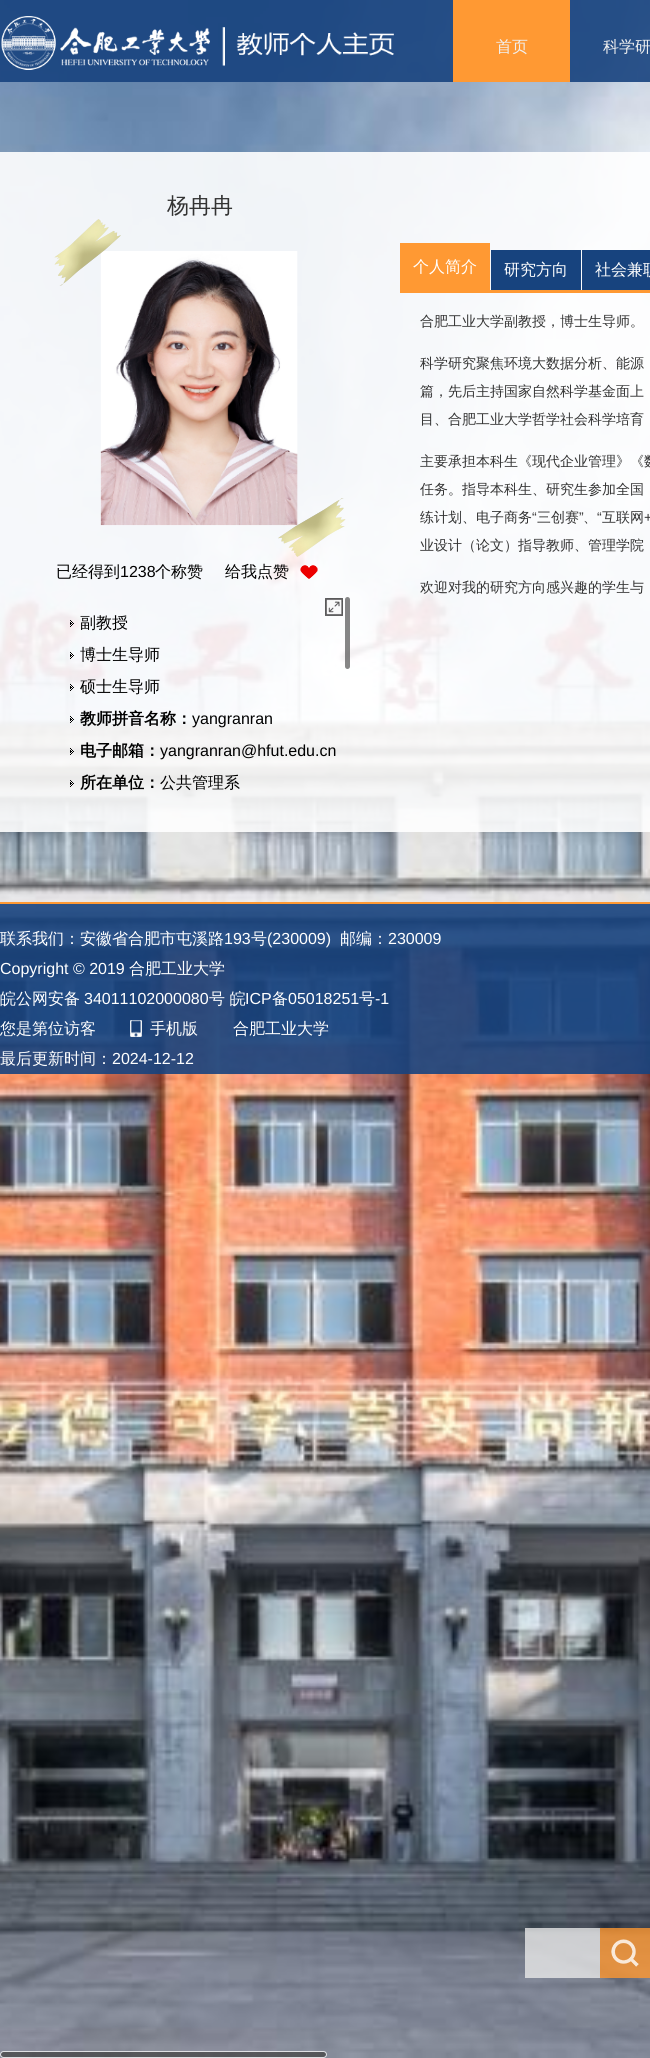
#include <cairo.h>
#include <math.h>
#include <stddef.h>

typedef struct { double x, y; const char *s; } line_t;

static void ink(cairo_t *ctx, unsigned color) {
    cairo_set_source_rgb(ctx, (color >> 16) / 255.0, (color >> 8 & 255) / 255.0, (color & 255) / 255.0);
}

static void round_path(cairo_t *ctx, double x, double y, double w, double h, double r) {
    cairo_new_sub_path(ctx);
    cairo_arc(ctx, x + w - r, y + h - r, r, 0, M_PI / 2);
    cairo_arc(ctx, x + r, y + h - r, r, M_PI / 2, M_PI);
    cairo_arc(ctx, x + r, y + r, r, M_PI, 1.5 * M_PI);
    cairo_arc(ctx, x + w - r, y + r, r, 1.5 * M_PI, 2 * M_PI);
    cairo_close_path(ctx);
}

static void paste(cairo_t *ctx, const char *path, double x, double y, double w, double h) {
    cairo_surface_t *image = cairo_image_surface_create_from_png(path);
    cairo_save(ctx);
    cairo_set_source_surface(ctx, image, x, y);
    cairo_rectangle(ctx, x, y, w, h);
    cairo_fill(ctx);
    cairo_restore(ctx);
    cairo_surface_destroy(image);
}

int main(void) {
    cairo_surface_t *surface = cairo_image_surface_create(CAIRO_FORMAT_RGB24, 650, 2058);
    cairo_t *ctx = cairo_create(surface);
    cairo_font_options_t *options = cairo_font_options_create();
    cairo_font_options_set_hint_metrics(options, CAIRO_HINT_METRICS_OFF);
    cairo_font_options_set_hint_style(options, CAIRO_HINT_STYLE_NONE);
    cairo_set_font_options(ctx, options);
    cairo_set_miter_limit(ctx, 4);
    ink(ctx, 0xFFFFFF);
    cairo_paint(ctx);
    paste(ctx, "media/1.png", 0, 0, 650, 2058);
    cairo_set_source_rgba(ctx, 0.094, 0.263, 0.498, 0.9);
    cairo_rectangle(ctx, 0, 0, 650, 82);
    cairo_fill(ctx);
    paste(ctx, "media/2.png", 1, 16, 393, 54);
    ink(ctx, 0xFF9933);
    cairo_rectangle(ctx, 453, 0, 117, 82);
    cairo_fill(ctx);
    cairo_select_font_face(ctx, "WenQuanYi Zen Hei Medium", CAIRO_FONT_SLANT_NORMAL, CAIRO_FONT_WEIGHT_NORMAL);
    cairo_set_font_size(ctx, 16);
    ink(ctx, 0xF0F0F0);
    cairo_move_to(ctx, 496, 52);
    cairo_show_text(ctx, "首页");
    cairo_move_to(ctx, 603, 52);
    cairo_show_text(ctx, "科学研");
    cairo_set_source_rgba(ctx, 1, 1, 1, 0.9);
    cairo_rectangle(ctx, 0, 152, 650, 680);
    cairo_fill(ctx);
    cairo_set_font_size(ctx, 22);
    ink(ctx, 0x333333);
    cairo_move_to(ctx, 167, 213);
    cairo_show_text(ctx, "杨冉冉");
    paste(ctx, "media/4.png", 100, 251, 198, 275);
    paste(ctx, "media/3.png", 54, 219, 292, 338);
    cairo_set_font_size(ctx, 16);
    ink(ctx, 0x000000);
    cairo_move_to(ctx, 56, 577);
    cairo_show_text(ctx, "已经得到");
    cairo_select_font_face(ctx, "Liberation Sans", CAIRO_FONT_SLANT_NORMAL, CAIRO_FONT_WEIGHT_NORMAL);
    cairo_move_to(ctx, 120, 577);
    cairo_show_text(ctx, "1238");
    cairo_select_font_face(ctx, "WenQuanYi Zen Hei Medium", CAIRO_FONT_SLANT_NORMAL, CAIRO_FONT_WEIGHT_NORMAL);
    cairo_move_to(ctx, 155, 577);
    cairo_show_text(ctx, "个称赞");
    cairo_move_to(ctx, 225, 577);
    cairo_show_text(ctx, "给我点赞");
    paste(ctx, "media/5.png", 300, 565, 18, 14);
    paste(ctx, "media/6.png", 70, 620, 4, 7);
    cairo_move_to(ctx, 80, 628);
    cairo_show_text(ctx, "副教授");
    paste(ctx, "media/7.png", 70, 652, 4, 7);
    cairo_move_to(ctx, 80, 660);
    cairo_show_text(ctx, "博士生导师");
    paste(ctx, "media/8.png", 70, 684, 4, 7);
    cairo_move_to(ctx, 80, 692);
    cairo_show_text(ctx, "硕士生导师");
    paste(ctx, "media/9.png", 70, 716, 4, 7);
    cairo_select_font_face(ctx, "WenQuanYi Zen Hei", CAIRO_FONT_SLANT_NORMAL, CAIRO_FONT_WEIGHT_BOLD);
    cairo_move_to(ctx, 80, 724);
    cairo_show_text(ctx, "教师拼音名称：");
    cairo_select_font_face(ctx, "Liberation Sans", CAIRO_FONT_SLANT_NORMAL, CAIRO_FONT_WEIGHT_NORMAL);
    cairo_move_to(ctx, 192, 724);
    cairo_show_text(ctx, "yangranran");
    paste(ctx, "media/10.png", 70, 748, 4, 7);
    cairo_select_font_face(ctx, "WenQuanYi Zen Hei", CAIRO_FONT_SLANT_NORMAL, CAIRO_FONT_WEIGHT_BOLD);
    cairo_move_to(ctx, 80, 756);
    cairo_show_text(ctx, "电子邮箱：");
    cairo_select_font_face(ctx, "Liberation Sans", CAIRO_FONT_SLANT_NORMAL, CAIRO_FONT_WEIGHT_NORMAL);
    cairo_move_to(ctx, 160, 756);
    cairo_show_text(ctx, "yangranran@hfut.edu.cn");
    paste(ctx, "media/11.png", 70, 780, 4, 7);
    cairo_select_font_face(ctx, "WenQuanYi Zen Hei", CAIRO_FONT_SLANT_NORMAL, CAIRO_FONT_WEIGHT_BOLD);
    cairo_move_to(ctx, 80, 788);
    cairo_show_text(ctx, "所在单位：");
    cairo_select_font_face(ctx, "WenQuanYi Zen Hei Medium", CAIRO_FONT_SLANT_NORMAL, CAIRO_FONT_WEIGHT_NORMAL);
    cairo_move_to(ctx, 160, 788);
    cairo_show_text(ctx, "公共管理系");
    ink(ctx, 0xFF9933);
    cairo_rectangle(ctx, 400, 243, 90, 47);
    cairo_fill(ctx);
    ink(ctx, 0xFFFFFF);
    cairo_move_to(ctx, 413, 272);
    cairo_show_text(ctx, "个人简介");
    ink(ctx, 0x17437E);
    cairo_rectangle(ctx, 491, 250, 90, 40);
    cairo_fill(ctx);
    ink(ctx, 0xFFFFFF);
    cairo_move_to(ctx, 504, 275);
    cairo_show_text(ctx, "研究方向");
    ink(ctx, 0x17437E);
    cairo_rectangle(ctx, 582, 250, 68, 40);
    cairo_fill(ctx);
    ink(ctx, 0xFFFFFF);
    cairo_move_to(ctx, 595, 275);
    cairo_show_text(ctx, "社会兼职");
    ink(ctx, 0xFF9933);
    cairo_rectangle(ctx, 400, 290, 250, 3);
    cairo_fill(ctx);
    cairo_set_font_size(ctx, 14);
    ink(ctx, 0x333333);
    {
        static const line_t items[] = {
            {420, 326, "合肥工业大学副教授，博士生导师。"},
            {420, 368, "科学研究聚焦环境大数据分析、能源"},
            {420, 396, "篇，先后主持国家自然科学基金面上"},
            {420, 424, "目、合肥工业大学哲学社会科学培育"},
            {420, 466, "主要承担本科生《现代企业管理》《数"},
            {420, 494, "任务。指导本科生、研究生参加全国"},
            {420, 522, "练计划、电子商务"},
        };
        for (size_t i = 0; i < sizeof items / sizeof *items; i++) {
            cairo_move_to(ctx, items[i].x, items[i].y);
            cairo_show_text(ctx, items[i].s);
        }
    }
    cairo_select_font_face(ctx, "Liberation Sans", CAIRO_FONT_SLANT_NORMAL, CAIRO_FONT_WEIGHT_NORMAL);
    cairo_move_to(ctx, 532, 522);
    cairo_show_text(ctx, "“");
    cairo_select_font_face(ctx, "WenQuanYi Zen Hei Medium", CAIRO_FONT_SLANT_NORMAL, CAIRO_FONT_WEIGHT_NORMAL);
    cairo_move_to(ctx, 537, 522);
    cairo_show_text(ctx, "三创赛");
    cairo_select_font_face(ctx, "Liberation Sans", CAIRO_FONT_SLANT_NORMAL, CAIRO_FONT_WEIGHT_NORMAL);
    cairo_move_to(ctx, 579, 522);
    cairo_show_text(ctx, "”");
    cairo_move_to(ctx, 597, 522);
    cairo_show_text(ctx, "“");
    cairo_select_font_face(ctx, "WenQuanYi Zen Hei Medium", CAIRO_FONT_SLANT_NORMAL, CAIRO_FONT_WEIGHT_NORMAL);
    cairo_move_to(ctx, 602, 522);
    cairo_show_text(ctx, "互联网");
    cairo_select_font_face(ctx, "Liberation Sans", CAIRO_FONT_SLANT_NORMAL, CAIRO_FONT_WEIGHT_NORMAL);
    cairo_move_to(ctx, 644, 522);
    cairo_show_text(ctx, "+");
    cairo_select_font_face(ctx, "WenQuanYi Zen Hei Medium", CAIRO_FONT_SLANT_NORMAL, CAIRO_FONT_WEIGHT_NORMAL);
    {
        static const line_t items[] = {
            {583, 522, "、"},
            {420, 550, "业设计（论文）指导教师、管理学院"},
            {420, 592, "欢迎对我的研究方向感兴趣的学生与"},
        };
        for (size_t i = 0; i < sizeof items / sizeof *items; i++) {
            cairo_move_to(ctx, items[i].x, items[i].y);
            cairo_show_text(ctx, items[i].s);
        }
    }
    paste(ctx, "media/12.png", 325, 598, 18, 18);
    cairo_set_source_rgba(ctx, 0.333, 0.333, 0.333, 0.71);
    round_path(ctx, 345, 597, 5, 72, 2.5);
    cairo_fill(ctx);
    cairo_set_source_rgba(ctx, 0.094, 0.263, 0.498, 0.9);
    cairo_rectangle(ctx, 0, 904, 650, 170);
    cairo_fill(ctx);
    ink(ctx, 0xFF9933);
    cairo_rectangle(ctx, 0, 902, 650, 2);
    cairo_fill(ctx);
    cairo_set_font_size(ctx, 16);
    ink(ctx, 0xFFFFFF);
    cairo_move_to(ctx, 0, 944);
    cairo_show_text(ctx, "联系我们：安徽省合肥市屯溪路");
    cairo_select_font_face(ctx, "Liberation Sans", CAIRO_FONT_SLANT_NORMAL, CAIRO_FONT_WEIGHT_NORMAL);
    cairo_move_to(ctx, 224, 944);
    cairo_show_text(ctx, "193");
    cairo_select_font_face(ctx, "WenQuanYi Zen Hei Medium", CAIRO_FONT_SLANT_NORMAL, CAIRO_FONT_WEIGHT_NORMAL);
    cairo_move_to(ctx, 251, 944);
    cairo_show_text(ctx, "号");
    cairo_select_font_face(ctx, "Liberation Sans", CAIRO_FONT_SLANT_NORMAL, CAIRO_FONT_WEIGHT_NORMAL);
    cairo_move_to(ctx, 267, 944);
    cairo_show_text(ctx, "(230009)");
    cairo_select_font_face(ctx, "WenQuanYi Zen Hei Medium", CAIRO_FONT_SLANT_NORMAL, CAIRO_FONT_WEIGHT_NORMAL);
    cairo_move_to(ctx, 340, 944);
    cairo_show_text(ctx, "邮编：");
    cairo_select_font_face(ctx, "Liberation Sans", CAIRO_FONT_SLANT_NORMAL, CAIRO_FONT_WEIGHT_NORMAL);
    cairo_move_to(ctx, 388, 944);
    cairo_show_text(ctx, "230009");
    cairo_move_to(ctx, 0, 974);
    cairo_show_text(ctx, "Copyright © 2019");
    cairo_select_font_face(ctx, "WenQuanYi Zen Hei Medium", CAIRO_FONT_SLANT_NORMAL, CAIRO_FONT_WEIGHT_NORMAL);
    cairo_move_to(ctx, 129, 974);
    cairo_show_text(ctx, "合肥工业大学");
    cairo_move_to(ctx, 0, 1004);
    cairo_show_text(ctx, "皖公网安备");
    cairo_select_font_face(ctx, "Liberation Sans", CAIRO_FONT_SLANT_NORMAL, CAIRO_FONT_WEIGHT_NORMAL);
    cairo_move_to(ctx, 84, 1004);
    cairo_show_text(ctx, "34011102000080");
    cairo_select_font_face(ctx, "WenQuanYi Zen Hei Medium", CAIRO_FONT_SLANT_NORMAL, CAIRO_FONT_WEIGHT_NORMAL);
    cairo_move_to(ctx, 209, 1004);
    cairo_show_text(ctx, "号 皖");
    cairo_select_font_face(ctx, "Liberation Sans", CAIRO_FONT_SLANT_NORMAL, CAIRO_FONT_WEIGHT_NORMAL);
    cairo_move_to(ctx, 245, 1004);
    cairo_show_text(ctx, "ICP");
    cairo_select_font_face(ctx, "WenQuanYi Zen Hei Medium", CAIRO_FONT_SLANT_NORMAL, CAIRO_FONT_WEIGHT_NORMAL);
    cairo_move_to(ctx, 272, 1004);
    cairo_show_text(ctx, "备");
    cairo_select_font_face(ctx, "Liberation Sans", CAIRO_FONT_SLANT_NORMAL, CAIRO_FONT_WEIGHT_NORMAL);
    cairo_move_to(ctx, 288, 1004);
    cairo_show_text(ctx, "05018251");
    cairo_select_font_face(ctx, "WenQuanYi Zen Hei Medium", CAIRO_FONT_SLANT_NORMAL, CAIRO_FONT_WEIGHT_NORMAL);
    cairo_move_to(ctx, 359, 1004);
    cairo_show_text(ctx, "号");
    cairo_select_font_face(ctx, "Liberation Sans", CAIRO_FONT_SLANT_NORMAL, CAIRO_FONT_WEIGHT_NORMAL);
    cairo_move_to(ctx, 375, 1004);
    cairo_show_text(ctx, "-1");
    cairo_select_font_face(ctx, "WenQuanYi Zen Hei Medium", CAIRO_FONT_SLANT_NORMAL, CAIRO_FONT_WEIGHT_NORMAL);
    cairo_move_to(ctx, 0, 1034);
    cairo_show_text(ctx, "您是第位访客");
    paste(ctx, "media/13.png", 130, 1020, 12, 17);
    {
        static const line_t items[] = {
            {150, 1034, "手机版"},
            {233, 1034, "合肥工业大学"},
            {0, 1064, "最后更新时间："},
        };
        for (size_t i = 0; i < sizeof items / sizeof *items; i++) {
            cairo_move_to(ctx, items[i].x, items[i].y);
            cairo_show_text(ctx, items[i].s);
        }
    }
    cairo_select_font_face(ctx, "Liberation Sans", CAIRO_FONT_SLANT_NORMAL, CAIRO_FONT_WEIGHT_NORMAL);
    cairo_move_to(ctx, 112, 1064);
    cairo_show_text(ctx, "2024-12-12");
    cairo_set_source_rgba(ctx, 0.91, 0.91, 0.91, 0.8);
    cairo_rectangle(ctx, 525, 1928, 75, 50);
    cairo_fill(ctx);
    cairo_set_source_rgba(ctx, 1, 0.6, 0.2, 0.8);
    cairo_rectangle(ctx, 600, 1928, 50, 50);
    cairo_fill(ctx);
    paste(ctx, "media/14.png", 611, 1939, 28, 28);
    cairo_set_source_rgba(ctx, 0.259, 0.259, 0.259, 0.73);
    round_path(ctx, 1, 2052, 325, 5, 2.5);
    cairo_fill(ctx);
    round_path(ctx, 0.5, 2051.5, 326, 6, 3);
    cairo_set_source_rgba(ctx, 1, 1, 1, 0.73);
    cairo_set_line_width(ctx, 1);
    cairo_stroke(ctx);
    cairo_surface_write_to_png(surface, "image.png");
    cairo_font_options_destroy(options);
    cairo_destroy(ctx);
    cairo_surface_destroy(surface);
    return 0;
}
